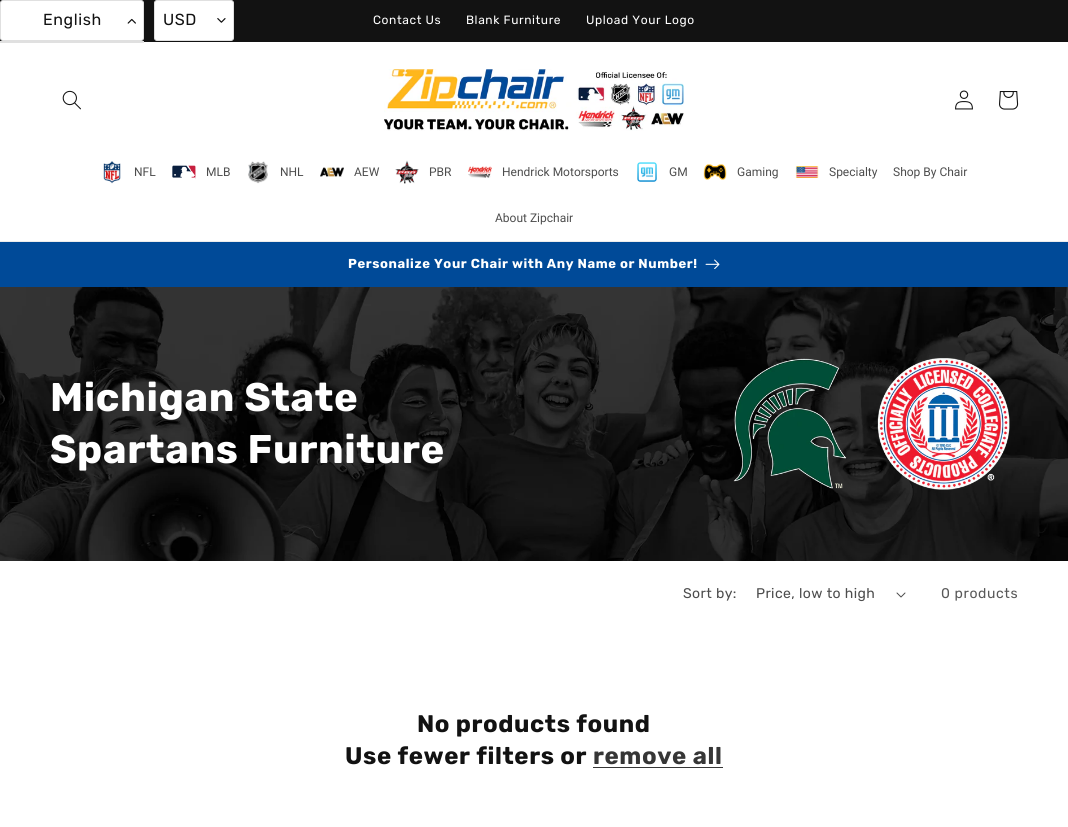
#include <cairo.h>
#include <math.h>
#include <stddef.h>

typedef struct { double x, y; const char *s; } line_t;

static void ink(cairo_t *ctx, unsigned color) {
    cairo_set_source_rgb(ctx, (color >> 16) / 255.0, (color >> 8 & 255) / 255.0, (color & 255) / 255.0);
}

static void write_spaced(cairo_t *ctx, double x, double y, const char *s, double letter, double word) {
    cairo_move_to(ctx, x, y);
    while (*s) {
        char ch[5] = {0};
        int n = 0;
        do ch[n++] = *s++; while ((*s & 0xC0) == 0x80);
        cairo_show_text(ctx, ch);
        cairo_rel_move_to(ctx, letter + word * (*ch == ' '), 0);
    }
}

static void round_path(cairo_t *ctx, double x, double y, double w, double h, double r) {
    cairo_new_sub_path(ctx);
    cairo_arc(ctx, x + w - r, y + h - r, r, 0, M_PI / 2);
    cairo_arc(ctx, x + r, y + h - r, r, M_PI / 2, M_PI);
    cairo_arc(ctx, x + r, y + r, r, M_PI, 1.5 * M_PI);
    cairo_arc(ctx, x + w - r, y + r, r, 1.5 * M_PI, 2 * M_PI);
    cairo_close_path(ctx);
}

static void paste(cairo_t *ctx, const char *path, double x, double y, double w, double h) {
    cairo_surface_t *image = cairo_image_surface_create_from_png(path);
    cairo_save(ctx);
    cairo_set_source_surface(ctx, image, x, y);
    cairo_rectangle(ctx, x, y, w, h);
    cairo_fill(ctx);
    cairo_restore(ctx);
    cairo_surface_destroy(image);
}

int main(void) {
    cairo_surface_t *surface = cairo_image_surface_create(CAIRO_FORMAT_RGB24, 1068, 827);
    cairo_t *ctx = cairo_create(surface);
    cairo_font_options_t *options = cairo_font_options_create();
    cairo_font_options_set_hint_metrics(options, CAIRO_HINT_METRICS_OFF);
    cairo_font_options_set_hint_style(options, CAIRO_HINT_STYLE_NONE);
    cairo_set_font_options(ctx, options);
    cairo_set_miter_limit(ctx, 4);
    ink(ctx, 0xFFFFFF);
    cairo_paint(ctx);
    ink(ctx, 0x121212);
    cairo_rectangle(ctx, 0, 0, 1068, 42);
    cairo_fill(ctx);
    ink(ctx, 0xFFFFFF);
    round_path(ctx, 0.5, 0.5, 143, 40, 2.5);
    cairo_fill_preserve(ctx);
    ink(ctx, 0xE0E0E0);
    cairo_set_line_width(ctx, 1);
    cairo_stroke(ctx);
    cairo_select_font_face(ctx, "Rubik", CAIRO_FONT_SLANT_NORMAL, CAIRO_FONT_WEIGHT_NORMAL);
    cairo_set_font_size(ctx, 16);
    ink(ctx, 0x121212);
    write_spaced(ctx, 43, 25, "English", 0.6, 0);
    paste(ctx, "media/1.png", 127, 18, 9, 6);
    ink(ctx, 0xE0E0E0);
    cairo_rectangle(ctx, 0, 41, 144, 2);
    cairo_fill(ctx);
    ink(ctx, 0xFFFFFF);
    round_path(ctx, 154.5, 0.5, 79, 40, 2.5);
    cairo_fill_preserve(ctx);
    ink(ctx, 0xE0E0E0);
    cairo_stroke(ctx);
    ink(ctx, 0x121212);
    write_spaced(ctx, 163, 25, "USD", 0.6, 0);
    paste(ctx, "media/2.png", 217, 18, 9, 5);
    cairo_set_font_size(ctx, 12);
    ink(ctx, 0xFFFFFF);
    {
        static const line_t items[] = {
            {373, 24, "Contact Us"},
            {466, 24, "Blank Furniture"},
            {586, 24, "Upload Your Logo"},
        };
        for (size_t i = 0; i < sizeof items / sizeof *items; i++) {
            write_spaced(ctx, items[i].x, items[i].y, items[i].s, 0.6, 0);
        }
    }
    ink(ctx, 0xECECEC);
    cairo_rectangle(ctx, 0, 241, 1068, 1);
    cairo_fill(ctx);
    paste(ctx, "media/3.png", 62, 90, 19, 20);
    paste(ctx, "media/4.png", 384, 69, 300, 62);
    paste(ctx, "media/5.png", 955, 90, 18, 20);
    paste(ctx, "media/6.png", 999, 91, 20, 19);
    paste(ctx, "media/7.png", 103, 161, 18, 23);
    cairo_select_font_face(ctx, "Roboto", CAIRO_FONT_SLANT_NORMAL, CAIRO_FONT_WEIGHT_NORMAL);
    ink(ctx, 0x4D4D4D);
    cairo_move_to(ctx, 134, 176);
    cairo_show_text(ctx, "NFL");
    paste(ctx, "media/8.png", 172, 165, 24, 14);
    cairo_move_to(ctx, 206, 176);
    cairo_show_text(ctx, "MLB");
    paste(ctx, "media/9.png", 248, 161, 20, 23);
    cairo_move_to(ctx, 280, 176);
    cairo_show_text(ctx, "NHL");
    paste(ctx, "media/10.png", 320, 167, 24, 10);
    cairo_move_to(ctx, 354, 176);
    cairo_show_text(ctx, "AEW");
    paste(ctx, "media/11.png", 395, 160, 24, 24);
    cairo_move_to(ctx, 429, 176);
    cairo_show_text(ctx, "PBR");
    paste(ctx, "media/12.png", 468, 166, 24, 12);
    cairo_move_to(ctx, 502, 176);
    cairo_show_text(ctx, "Hendrick Motorsports");
    paste(ctx, "media/13.png", 637, 162, 20, 20);
    cairo_move_to(ctx, 669, 176);
    cairo_show_text(ctx, "GM");
    paste(ctx, "media/14.png", 703, 164, 24, 16);
    cairo_move_to(ctx, 737, 176);
    cairo_show_text(ctx, "Gaming");
    paste(ctx, "media/15.png", 795, 166, 24, 12);
    {
        static const line_t items[] = {
            {829, 176, "Specialty"},
            {893, 176, "Shop By Chair"},
            {495, 222, "About Zipchair"},
        };
        for (size_t i = 0; i < sizeof items / sizeof *items; i++) {
            cairo_move_to(ctx, items[i].x, items[i].y);
            cairo_show_text(ctx, items[i].s);
        }
    }
    ink(ctx, 0x004A98);
    cairo_rectangle(ctx, 0, 242, 1068, 45);
    cairo_fill(ctx);
    cairo_select_font_face(ctx, "Rubik", CAIRO_FONT_SLANT_NORMAL, CAIRO_FONT_WEIGHT_BOLD);
    cairo_set_font_size(ctx, 13);
    ink(ctx, 0xFFFFFF);
    write_spaced(ctx, 348, 268, "Personalize Your Chair with Any Name or Number!", 0.6, 0);
    paste(ctx, "media/16.png", 705, 259, 15, 10);
    paste(ctx, "media/17.png", 0, 287, 1068, 274);
    cairo_set_font_size(ctx, 40);
    write_spaced(ctx, 50, 411, "Michigan State", 0.6, 0);
    write_spaced(ctx, 50, 463, "Spartans Furniture", 0.6, 0);
    paste(ctx, "media/18.png", 733, 358, 277, 132);
    cairo_select_font_face(ctx, "Rubik", CAIRO_FONT_SLANT_NORMAL, CAIRO_FONT_WEIGHT_NORMAL);
    cairo_set_font_size(ctx, 14);
    ink(ctx, 0x4D4D4D);
    write_spaced(ctx, 683, 598, "Sort by:", 0.4, 0);
    write_spaced(ctx, 756, 598, "Price, low to high", 0.4, 0);
    paste(ctx, "media/19.png", 896, 592, 10, 6);
    ink(ctx, 0x595959);
    write_spaced(ctx, 941, 598, "0 products", 0.6, 0);
    cairo_select_font_face(ctx, "Rubik", CAIRO_FONT_SLANT_NORMAL, CAIRO_FONT_WEIGHT_BOLD);
    cairo_set_font_size(ctx, 24);
    ink(ctx, 0x121212);
    write_spaced(ctx, 417, 732, "No products found", 0.6, 0);
    write_spaced(ctx, 345, 764, "Use fewer filters or", 0.6, 0);
    ink(ctx, 0x363636);
    write_spaced(ctx, 593, 764, "remove all", 0.6, 0);
    cairo_rectangle(ctx, 593, 767, 130, 1);
    cairo_fill(ctx);
    cairo_surface_write_to_png(surface, "image.png");
    cairo_font_options_destroy(options);
    cairo_destroy(ctx);
    cairo_surface_destroy(surface);
    return 0;
}
